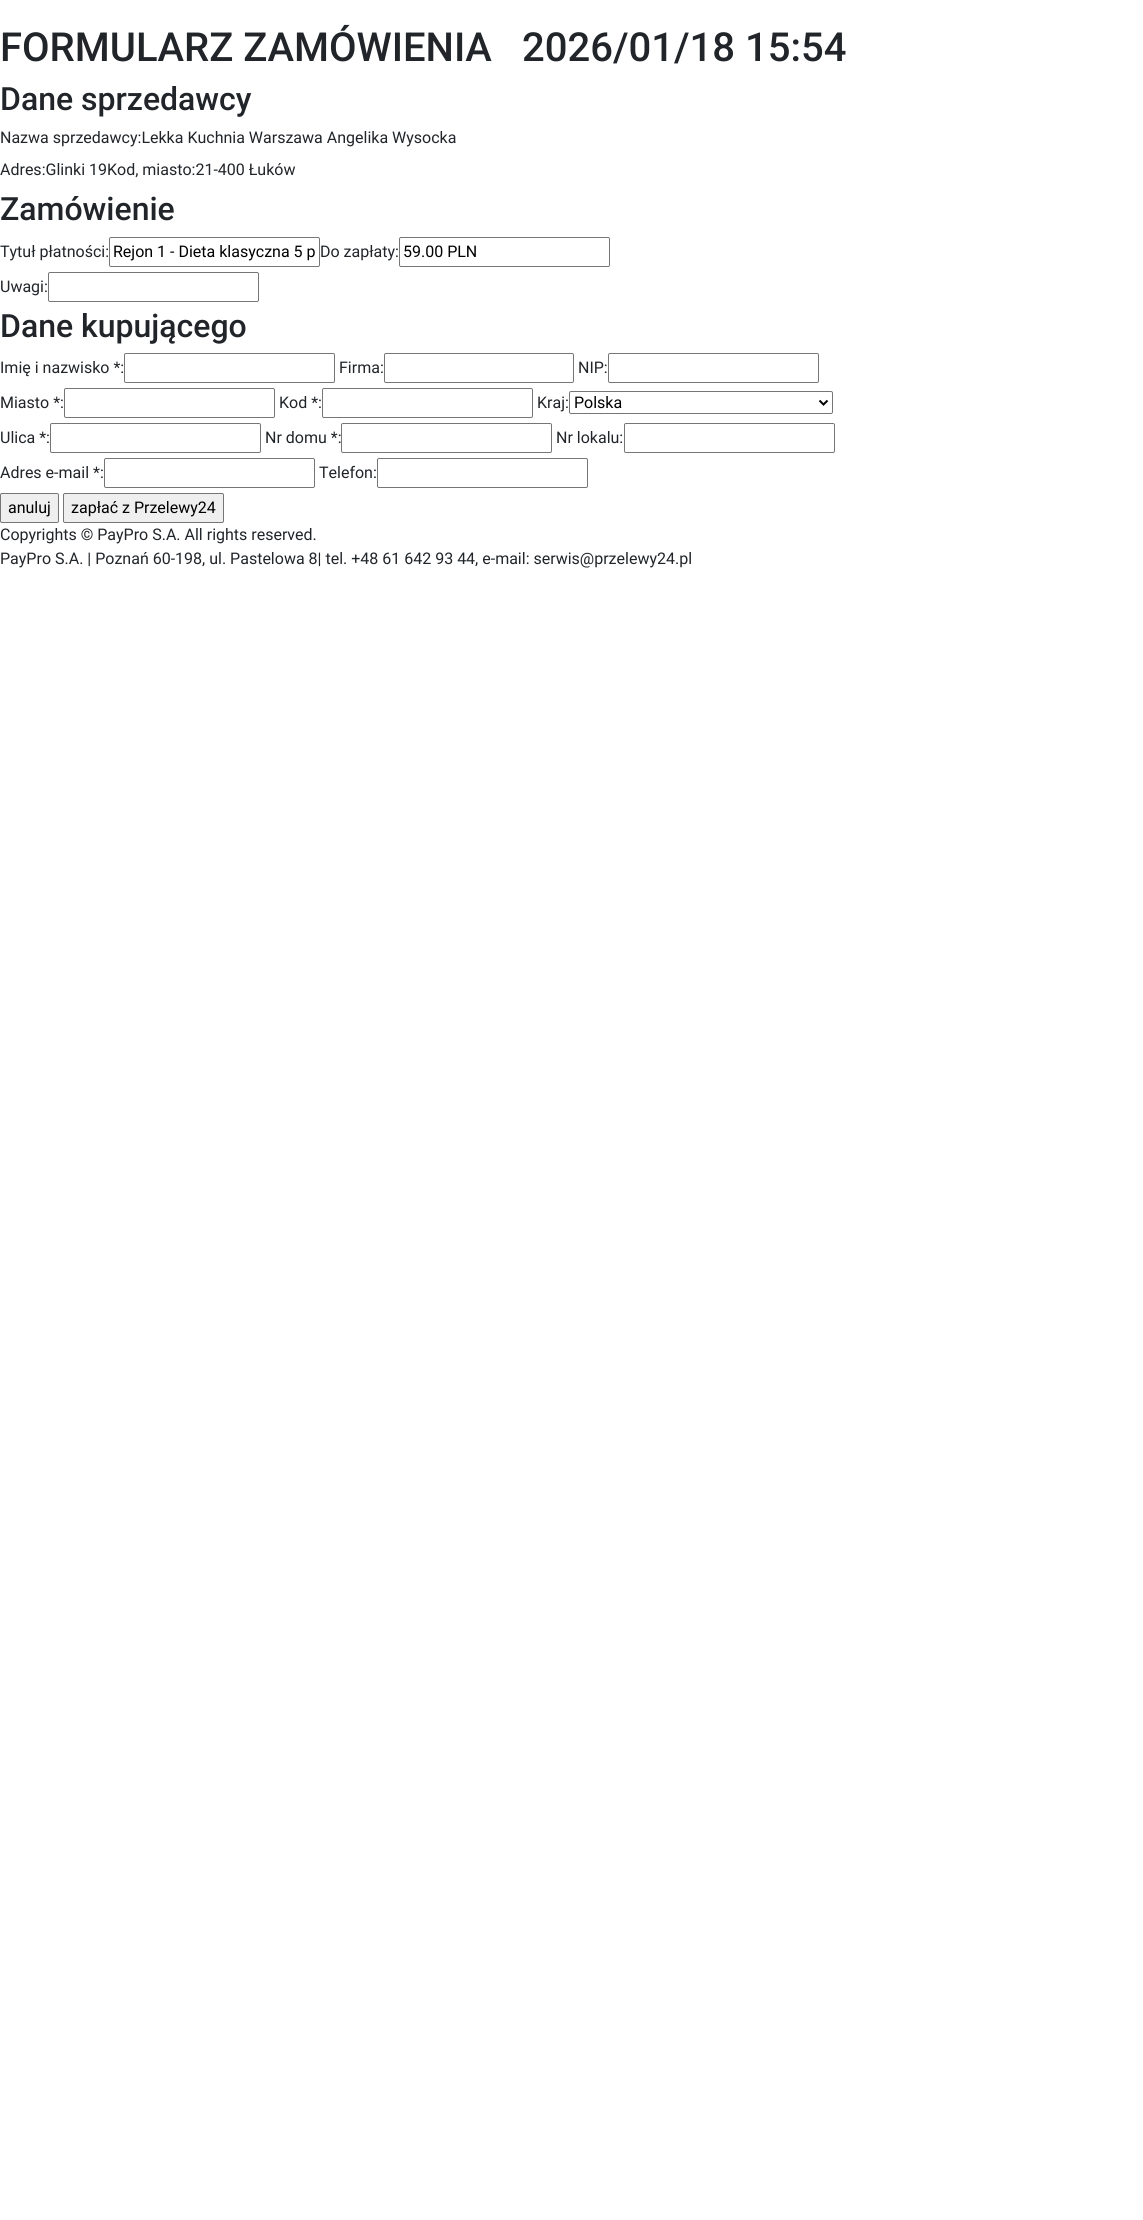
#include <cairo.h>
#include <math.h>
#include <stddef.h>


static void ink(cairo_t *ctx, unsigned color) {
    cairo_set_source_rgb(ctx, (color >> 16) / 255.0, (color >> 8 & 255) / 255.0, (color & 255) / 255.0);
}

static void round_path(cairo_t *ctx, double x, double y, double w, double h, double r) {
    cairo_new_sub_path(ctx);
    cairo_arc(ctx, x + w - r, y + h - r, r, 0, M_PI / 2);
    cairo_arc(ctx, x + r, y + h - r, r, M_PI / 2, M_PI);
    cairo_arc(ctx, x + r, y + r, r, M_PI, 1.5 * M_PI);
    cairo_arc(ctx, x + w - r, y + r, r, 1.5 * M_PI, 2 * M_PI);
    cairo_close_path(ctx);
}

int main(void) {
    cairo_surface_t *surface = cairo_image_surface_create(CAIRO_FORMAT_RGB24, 1143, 2220);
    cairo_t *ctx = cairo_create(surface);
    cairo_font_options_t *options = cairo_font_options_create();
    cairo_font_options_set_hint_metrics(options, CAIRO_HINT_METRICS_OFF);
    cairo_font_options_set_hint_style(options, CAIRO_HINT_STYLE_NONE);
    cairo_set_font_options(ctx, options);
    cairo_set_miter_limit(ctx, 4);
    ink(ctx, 0xFFFFFF);
    cairo_paint(ctx);
    cairo_select_font_face(ctx, "Roboto Medium", CAIRO_FONT_SLANT_NORMAL, CAIRO_FONT_WEIGHT_NORMAL);
    cairo_set_font_size(ctx, 40);
    ink(ctx, 0x212529);
    cairo_move_to(ctx, 0, 61);
    cairo_show_text(ctx, "FORMULARZ ZAMÓWIENIA");
    cairo_move_to(ctx, 522, 61);
    cairo_show_text(ctx, "2026/01/18 15:54");
    cairo_set_font_size(ctx, 32);
    cairo_move_to(ctx, 0, 110);
    cairo_show_text(ctx, "Dane sprzedawcy");
    cairo_select_font_face(ctx, "Roboto", CAIRO_FONT_SLANT_NORMAL, CAIRO_FONT_WEIGHT_NORMAL);
    cairo_set_font_size(ctx, 16);
    cairo_move_to(ctx, 0, 143);
    cairo_show_text(ctx, "Nazwa sprzedawcy:Lekka Kuchnia Warszawa Angelika Wysocka");
    cairo_move_to(ctx, 0, 175);
    cairo_show_text(ctx, "Adres:Glinki 19Kod, miasto:21-400 Łuków");
    cairo_select_font_face(ctx, "Roboto Medium", CAIRO_FONT_SLANT_NORMAL, CAIRO_FONT_WEIGHT_NORMAL);
    cairo_set_font_size(ctx, 32);
    cairo_move_to(ctx, 0, 220);
    cairo_show_text(ctx, "Zamówienie");
    cairo_select_font_face(ctx, "Roboto", CAIRO_FONT_SLANT_NORMAL, CAIRO_FONT_WEIGHT_NORMAL);
    cairo_set_font_size(ctx, 16);
    cairo_move_to(ctx, 0, 257);
    cairo_show_text(ctx, "Tytuł płatności:");
    round_path(ctx, 109.5, 237.5, 210, 29, 1.5);
    ink(ctx, 0x767676);
    cairo_set_line_width(ctx, 1);
    cairo_stroke(ctx);
    ink(ctx, 0x000000);
    cairo_move_to(ctx, 113, 257);
    cairo_show_text(ctx, "Rejon 1 - Dieta klasyczna 5 p");
    ink(ctx, 0x212529);
    cairo_move_to(ctx, 320, 257);
    cairo_show_text(ctx, "Do zapłaty:");
    round_path(ctx, 399.5, 237.5, 210, 29, 1.5);
    ink(ctx, 0x767676);
    cairo_stroke(ctx);
    ink(ctx, 0x000000);
    cairo_move_to(ctx, 403, 257);
    cairo_show_text(ctx, "59.00 PLN");
    ink(ctx, 0x212529);
    cairo_move_to(ctx, 0, 292);
    cairo_show_text(ctx, "Uwagi:");
    round_path(ctx, 48.5, 272.5, 210, 29, 1.5);
    ink(ctx, 0x767676);
    cairo_stroke(ctx);
    cairo_select_font_face(ctx, "Roboto Medium", CAIRO_FONT_SLANT_NORMAL, CAIRO_FONT_WEIGHT_NORMAL);
    cairo_set_font_size(ctx, 32);
    ink(ctx, 0x212529);
    cairo_move_to(ctx, 0, 337);
    cairo_show_text(ctx, "Dane kupującego");
    cairo_select_font_face(ctx, "Roboto", CAIRO_FONT_SLANT_NORMAL, CAIRO_FONT_WEIGHT_NORMAL);
    cairo_set_font_size(ctx, 16);
    cairo_move_to(ctx, 0, 373);
    cairo_show_text(ctx, "Imię i nazwisko *:");
    round_path(ctx, 124.5, 353.5, 210, 29, 1.5);
    ink(ctx, 0x767676);
    cairo_stroke(ctx);
    ink(ctx, 0x212529);
    cairo_move_to(ctx, 339, 373);
    cairo_show_text(ctx, "Firma:");
    round_path(ctx, 384.5, 353.5, 189, 29, 1.5);
    ink(ctx, 0x767676);
    cairo_stroke(ctx);
    ink(ctx, 0x212529);
    cairo_move_to(ctx, 578, 373);
    cairo_show_text(ctx, "NIP:");
    round_path(ctx, 608.5, 353.5, 210, 29, 1.5);
    ink(ctx, 0x767676);
    cairo_stroke(ctx);
    ink(ctx, 0x212529);
    cairo_move_to(ctx, 0, 408);
    cairo_show_text(ctx, "Miasto *:");
    round_path(ctx, 64.5, 388.5, 210, 29, 1.5);
    ink(ctx, 0x767676);
    cairo_stroke(ctx);
    ink(ctx, 0x212529);
    cairo_move_to(ctx, 279, 408);
    cairo_show_text(ctx, "Kod *:");
    round_path(ctx, 322.5, 388.5, 210, 29, 1.5);
    ink(ctx, 0x767676);
    cairo_stroke(ctx);
    ink(ctx, 0x212529);
    cairo_move_to(ctx, 537, 408);
    cairo_show_text(ctx, "Kraj:");
    round_path(ctx, 569.5, 391.5, 263, 22, 1.5);
    ink(ctx, 0x767676);
    cairo_stroke(ctx);
    cairo_new_path(ctx);
    cairo_move_to(ctx, 819.5, 400.5);
    cairo_line_to(ctx, 823.5, 404.5);
    cairo_line_to(ctx, 827.5, 400.5);
    ink(ctx, 0x000000);
    cairo_set_line_width(ctx, 2);
    cairo_stroke(ctx);
    cairo_move_to(ctx, 574, 408);
    cairo_show_text(ctx, "Polska");
    ink(ctx, 0x212529);
    cairo_move_to(ctx, 0, 443);
    cairo_show_text(ctx, "Ulica *:");
    round_path(ctx, 50.5, 423.5, 210, 29, 1.5);
    ink(ctx, 0x767676);
    cairo_set_line_width(ctx, 1);
    cairo_stroke(ctx);
    ink(ctx, 0x212529);
    cairo_move_to(ctx, 265, 443);
    cairo_show_text(ctx, "Nr domu *:");
    round_path(ctx, 341.5, 423.5, 210, 29, 1.5);
    ink(ctx, 0x767676);
    cairo_stroke(ctx);
    ink(ctx, 0x212529);
    cairo_move_to(ctx, 556, 443);
    cairo_show_text(ctx, "Nr lokalu:");
    round_path(ctx, 624.5, 423.5, 210, 29, 1.5);
    ink(ctx, 0x767676);
    cairo_stroke(ctx);
    ink(ctx, 0x212529);
    cairo_move_to(ctx, 0, 478);
    cairo_show_text(ctx, "Adres e-mail *:");
    round_path(ctx, 104.5, 458.5, 210, 29, 1.5);
    ink(ctx, 0x767676);
    cairo_stroke(ctx);
    ink(ctx, 0x212529);
    cairo_move_to(ctx, 319, 478);
    cairo_show_text(ctx, "Telefon:");
    round_path(ctx, 377.5, 458.5, 210, 29, 1.5);
    ink(ctx, 0x767676);
    cairo_stroke(ctx);
    ink(ctx, 0xEFEFEF);
    round_path(ctx, 0.5, 493.5, 58, 29, 1.5);
    cairo_fill_preserve(ctx);
    ink(ctx, 0x767676);
    cairo_stroke(ctx);
    ink(ctx, 0x000000);
    cairo_move_to(ctx, 8, 513);
    cairo_show_text(ctx, "anuluj");
    ink(ctx, 0xEFEFEF);
    round_path(ctx, 63.5, 493.5, 160, 29, 1.5);
    cairo_fill_preserve(ctx);
    ink(ctx, 0x767676);
    cairo_stroke(ctx);
    ink(ctx, 0x000000);
    cairo_move_to(ctx, 71, 513);
    cairo_show_text(ctx, "zapłać z Przelewy24");
    ink(ctx, 0x212529);
    cairo_move_to(ctx, 0, 540);
    cairo_show_text(ctx, "Copyrights © PayPro S.A. All rights reserved.");
    cairo_move_to(ctx, 0, 564);
    cairo_show_text(ctx, "PayPro S.A. | Poznań 60-198, ul. Pastelowa 8| tel. +48 61 642 93 44, e-mail: serwis@przelewy24.pl");
    cairo_surface_write_to_png(surface, "image.png");
    cairo_font_options_destroy(options);
    cairo_destroy(ctx);
    cairo_surface_destroy(surface);
    return 0;
}
